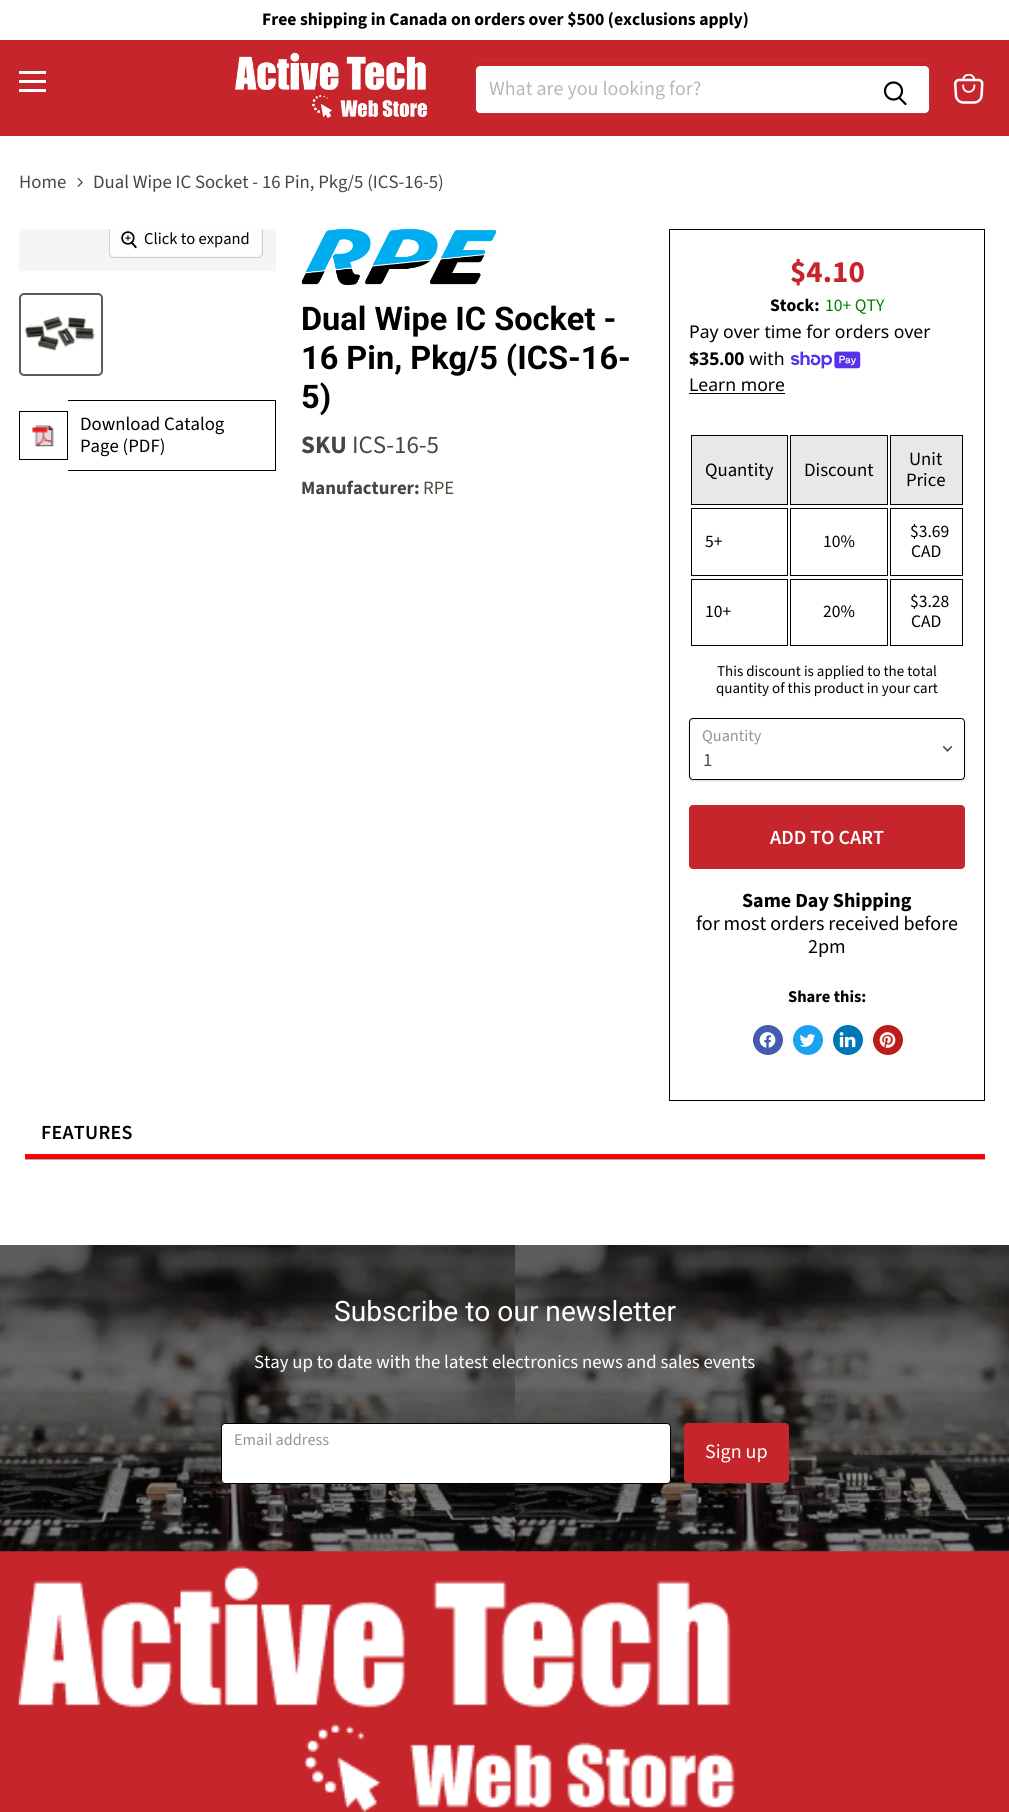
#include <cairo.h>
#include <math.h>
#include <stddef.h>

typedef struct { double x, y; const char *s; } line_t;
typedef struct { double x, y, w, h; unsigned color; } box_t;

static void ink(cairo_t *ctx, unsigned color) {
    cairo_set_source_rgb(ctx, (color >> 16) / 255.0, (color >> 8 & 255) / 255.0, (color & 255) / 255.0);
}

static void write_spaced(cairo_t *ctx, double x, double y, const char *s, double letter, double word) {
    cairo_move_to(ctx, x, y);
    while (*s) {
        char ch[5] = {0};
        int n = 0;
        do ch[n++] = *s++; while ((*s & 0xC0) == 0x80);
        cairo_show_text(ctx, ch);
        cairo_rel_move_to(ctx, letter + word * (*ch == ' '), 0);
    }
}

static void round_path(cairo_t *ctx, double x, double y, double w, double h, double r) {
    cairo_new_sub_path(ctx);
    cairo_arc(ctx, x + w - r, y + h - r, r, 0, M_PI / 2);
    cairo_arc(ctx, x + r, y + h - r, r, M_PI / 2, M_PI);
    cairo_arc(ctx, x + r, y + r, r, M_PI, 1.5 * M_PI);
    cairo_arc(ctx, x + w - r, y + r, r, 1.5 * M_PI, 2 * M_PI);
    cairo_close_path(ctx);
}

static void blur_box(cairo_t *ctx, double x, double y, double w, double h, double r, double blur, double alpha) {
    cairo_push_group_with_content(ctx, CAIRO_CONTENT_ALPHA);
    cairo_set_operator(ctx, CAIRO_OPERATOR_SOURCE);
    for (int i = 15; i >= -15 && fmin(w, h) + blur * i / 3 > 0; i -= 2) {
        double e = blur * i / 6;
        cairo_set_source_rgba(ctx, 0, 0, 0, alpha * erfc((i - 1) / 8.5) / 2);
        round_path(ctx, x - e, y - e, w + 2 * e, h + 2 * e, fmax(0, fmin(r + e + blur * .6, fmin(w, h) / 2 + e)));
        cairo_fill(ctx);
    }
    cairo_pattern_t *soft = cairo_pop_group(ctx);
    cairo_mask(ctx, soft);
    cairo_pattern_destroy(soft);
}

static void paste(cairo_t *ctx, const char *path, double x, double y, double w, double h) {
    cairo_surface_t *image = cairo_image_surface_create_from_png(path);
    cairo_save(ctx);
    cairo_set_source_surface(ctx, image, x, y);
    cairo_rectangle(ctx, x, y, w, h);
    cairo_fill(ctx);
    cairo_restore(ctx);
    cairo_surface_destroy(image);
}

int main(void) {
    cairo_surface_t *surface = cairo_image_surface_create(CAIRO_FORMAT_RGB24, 1009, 1812);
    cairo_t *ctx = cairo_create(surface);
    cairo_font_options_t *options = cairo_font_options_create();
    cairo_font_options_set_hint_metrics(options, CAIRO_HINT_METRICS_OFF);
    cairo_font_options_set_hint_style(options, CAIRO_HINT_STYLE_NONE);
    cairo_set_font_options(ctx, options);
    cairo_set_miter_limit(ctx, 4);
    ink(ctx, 0xFFFFFF);
    cairo_paint(ctx);
    cairo_select_font_face(ctx, "Source Sans Pro", CAIRO_FONT_SLANT_NORMAL, CAIRO_FONT_WEIGHT_BOLD);
    cairo_set_font_size(ctx, 17.6);
    ink(ctx, 0x000000);
    cairo_move_to(ctx, 262, 25);
    cairo_show_text(ctx, "Free shipping in Canada on orders over $500 (exclusions apply)");
    {
        static const box_t items[] = {
            {0, 40, 1009, 96, 0xC6252B},
            {19, 71, 27, 3, 0xFFFFFF},
            {19, 80, 27, 3, 0xFFFFFF},
            {19, 89, 27, 3, 0xFFFFFF},
        };
        for (size_t i = 0; i < sizeof items / sizeof *items; i++) {
            ink(ctx, items[i].color);
            cairo_rectangle(ctx, items[i].x, items[i].y, items[i].w, items[i].h);
            cairo_fill(ctx);
        }
    }
    paste(ctx, "media/1.png", 235, 52, 193, 66);
    round_path(ctx, 475.5, 59.5, 454, 54, 4.5);
    cairo_set_source_rgba(ctx, 0.502, 0.502, 0.502, 0.2);
    cairo_set_line_width(ctx, 1);
    cairo_stroke(ctx);
    ink(ctx, 0xFFFFFF);
    cairo_new_path(ctx);
    cairo_move_to(ctx, 480, 66);
    cairo_line_to(ctx, 861, 66);
    cairo_line_to(ctx, 861, 113);
    cairo_line_to(ctx, 480, 113);
    cairo_curve_to(ctx, 478, 113, 476, 111, 476, 109);
    cairo_line_to(ctx, 476, 70);
    cairo_curve_to(ctx, 476, 68, 478, 66, 480, 66);
    cairo_close_path(ctx);
    cairo_fill(ctx);
    cairo_select_font_face(ctx, "Source Sans Pro", CAIRO_FONT_SLANT_NORMAL, CAIRO_FONT_WEIGHT_NORMAL);
    cairo_set_font_size(ctx, 20);
    ink(ctx, 0xB8B8B8);
    cairo_move_to(ctx, 489, 95);
    cairo_show_text(ctx, "What are you looking for?");
    ink(ctx, 0xFFFFFF);
    cairo_new_path(ctx);
    cairo_move_to(ctx, 861, 66);
    cairo_line_to(ctx, 925, 66);
    cairo_curve_to(ctx, 927, 66, 929, 68, 929, 70);
    cairo_line_to(ctx, 929, 109);
    cairo_curve_to(ctx, 929, 111, 927, 113, 925, 113);
    cairo_line_to(ctx, 861, 113);
    cairo_close_path(ctx);
    cairo_fill(ctx);
    cairo_new_path(ctx);
    cairo_move_to(ctx, 905.5, 104);
    cairo_line_to(ctx, 899.5, 98);
    ink(ctx, 0x000000);
    cairo_set_line_width(ctx, 2.2);
    cairo_set_line_cap(ctx, CAIRO_LINE_CAP_ROUND);
    cairo_stroke(ctx);
    cairo_arc(ctx, 893.5, 91, 8.5, 0, 2 * M_PI);
    cairo_set_line_cap(ctx, CAIRO_LINE_CAP_BUTT);
    cairo_stroke(ctx);
    paste(ctx, "media/2.png", 954, 74, 30, 30);
    cairo_set_font_size(ctx, 18.75);
    ink(ctx, 0x494D41);
    cairo_move_to(ctx, 19, 188);
    cairo_show_text(ctx, "Home");
    paste(ctx, "media/3.png", 77, 177, 6, 10);
    ink(ctx, 0x464646);
    cairo_move_to(ctx, 93, 188);
    cairo_show_text(ctx, "Dual Wipe IC Socket - 16 Pin, Pkg/5 (ICS-16-5)");
    ink(ctx, 0xF5F5F5);
    cairo_rectangle(ctx, 19, 229, 257, 42);
    cairo_fill(ctx);
    cairo_save(ctx);
    cairo_rectangle(ctx, 19, 229, 257, 42);
    cairo_clip(ctx);
    round_path(ctx, 109.5, 221.5, 153, 36, 4.5);
    ink(ctx, 0xD0D0D0);
    cairo_set_line_width(ctx, 1);
    cairo_stroke(ctx);
    cairo_restore(ctx);
    ink(ctx, 0xFEFEFE);
    cairo_new_path(ctx);
    cairo_move_to(ctx, 110, 229);
    cairo_line_to(ctx, 261, 229);
    cairo_line_to(ctx, 261, 252);
    cairo_curve_to(ctx, 261, 254, 259, 256, 257, 256);
    cairo_line_to(ctx, 114, 256);
    cairo_curve_to(ctx, 112, 256, 110, 254, 110, 252);
    cairo_close_path(ctx);
    cairo_fill(ctx);
    paste(ctx, "media/4.png", 121, 231, 16, 18);
    cairo_set_font_size(ctx, 16.5);
    ink(ctx, 0x000000);
    cairo_move_to(ctx, 144, 244);
    cairo_show_text(ctx, "Click to expand");
    round_path(ctx, 20, 294, 82, 81, 4);
    ink(ctx, 0x5C5C5C);
    cairo_set_line_width(ctx, 2);
    cairo_stroke(ctx);
    paste(ctx, "media/5.png", 25, 316, 70, 35);
    cairo_rectangle(ctx, 19.5, 411.5, 48, 48);
    ink(ctx, 0x000000);
    cairo_set_line_width(ctx, 1);
    cairo_stroke(ctx);
    paste(ctx, "media/6.png", 32, 425, 22, 22);
    {
        static const box_t items[] = {
            {68, 400, 208, 1, 0x000000},
            {275, 400, 1, 71, 0x000000},
            {68, 470, 208, 1, 0x000000},
        };
        for (size_t i = 0; i < sizeof items / sizeof *items; i++) {
            ink(ctx, items[i].color);
            cairo_rectangle(ctx, items[i].x, items[i].y, items[i].w, items[i].h);
            cairo_fill(ctx);
        }
    }
    cairo_set_font_size(ctx, 18.75);
    cairo_move_to(ctx, 80, 430);
    cairo_show_text(ctx, "Download Catalog");
    cairo_move_to(ctx, 80, 452);
    cairo_show_text(ctx, "Page (PDF)");
    paste(ctx, "media/7.png", 301, 228, 196, 57);
    cairo_select_font_face(ctx, "Roboto", CAIRO_FONT_SLANT_NORMAL, CAIRO_FONT_WEIGHT_BOLD);
    cairo_set_font_size(ctx, 32.5);
    {
        static const line_t items[] = {
            {301, 330, "Dual Wipe IC Socket -"},
            {301, 369, "16 Pin, Pkg/5 (ICS-16-"},
            {301, 408, "5)"},
        };
        for (size_t i = 0; i < sizeof items / sizeof *items; i++) {
            cairo_move_to(ctx, items[i].x, items[i].y);
            cairo_show_text(ctx, items[i].s);
        }
    }
    cairo_select_font_face(ctx, "Source Sans Pro", CAIRO_FONT_SLANT_NORMAL, CAIRO_FONT_WEIGHT_BOLD);
    cairo_set_font_size(ctx, 25);
    ink(ctx, 0x464646);
    cairo_move_to(ctx, 301, 453);
    cairo_show_text(ctx, "SKU");
    cairo_select_font_face(ctx, "Source Sans Pro", CAIRO_FONT_SLANT_NORMAL, CAIRO_FONT_WEIGHT_NORMAL);
    cairo_move_to(ctx, 352, 453);
    cairo_show_text(ctx, "ICS-16-5");
    cairo_select_font_face(ctx, "Source Sans Pro", CAIRO_FONT_SLANT_NORMAL, CAIRO_FONT_WEIGHT_BOLD);
    cairo_set_font_size(ctx, 18.75);
    cairo_move_to(ctx, 301, 494);
    cairo_show_text(ctx, "Manufacturer:");
    cairo_select_font_face(ctx, "Source Sans Pro", CAIRO_FONT_SLANT_NORMAL, CAIRO_FONT_WEIGHT_NORMAL);
    ink(ctx, 0x494D41);
    cairo_move_to(ctx, 423, 494);
    cairo_show_text(ctx, "RPE");
    cairo_rectangle(ctx, 669.5, 229.5, 315, 871);
    ink(ctx, 0x000000);
    cairo_stroke(ctx);
    cairo_select_font_face(ctx, "Source Sans Pro", CAIRO_FONT_SLANT_NORMAL, CAIRO_FONT_WEIGHT_BOLD);
    cairo_set_font_size(ctx, 31);
    ink(ctx, 0xC6252B);
    cairo_move_to(ctx, 790, 282);
    cairo_show_text(ctx, "$4.10");
    cairo_set_font_size(ctx, 17.6);
    ink(ctx, 0x000000);
    cairo_move_to(ctx, 770, 311);
    cairo_show_text(ctx, "Stock:");
    cairo_select_font_face(ctx, "Source Sans Pro", CAIRO_FONT_SLANT_NORMAL, CAIRO_FONT_WEIGHT_NORMAL);
    ink(ctx, 0x008000);
    cairo_move_to(ctx, 825, 311);
    cairo_show_text(ctx, "10+ QTY");
    cairo_select_font_face(ctx, "Noto Sans", CAIRO_FONT_SLANT_NORMAL, CAIRO_FONT_WEIGHT_NORMAL);
    ink(ctx, 0x000000);
    cairo_move_to(ctx, 689, 338);
    cairo_show_text(ctx, "Pay over time for orders over");
    cairo_select_font_face(ctx, "Noto Sans", CAIRO_FONT_SLANT_NORMAL, CAIRO_FONT_WEIGHT_BOLD);
    cairo_move_to(ctx, 689, 365);
    cairo_show_text(ctx, "$35.00");
    cairo_select_font_face(ctx, "Noto Sans", CAIRO_FONT_SLANT_NORMAL, CAIRO_FONT_WEIGHT_NORMAL);
    cairo_move_to(ctx, 749, 365);
    cairo_show_text(ctx, "with");
    paste(ctx, "media/8.png", 791, 351, 70, 18);
    cairo_move_to(ctx, 689, 391);
    cairo_show_text(ctx, "Learn more");
    cairo_rectangle(ctx, 689, 393, 96, 1);
    cairo_fill(ctx);
    ink(ctx, 0xE8E8E8);
    cairo_rectangle(ctx, 691.5, 435.5, 96, 69);
    cairo_fill_preserve(ctx);
    ink(ctx, 0x000000);
    cairo_stroke(ctx);
    cairo_select_font_face(ctx, "Source Sans Pro", CAIRO_FONT_SLANT_NORMAL, CAIRO_FONT_WEIGHT_NORMAL);
    cairo_set_font_size(ctx, 18.75);
    cairo_move_to(ctx, 705, 476);
    cairo_show_text(ctx, "Quantity");
    ink(ctx, 0xE8E8E8);
    cairo_rectangle(ctx, 790.5, 435.5, 97, 69);
    cairo_fill_preserve(ctx);
    ink(ctx, 0x000000);
    cairo_stroke(ctx);
    cairo_move_to(ctx, 804, 476);
    cairo_show_text(ctx, "Discount");
    ink(ctx, 0xE8E8E8);
    cairo_rectangle(ctx, 890.5, 435.5, 72, 69);
    cairo_fill_preserve(ctx);
    ink(ctx, 0x000000);
    cairo_stroke(ctx);
    cairo_move_to(ctx, 909, 465);
    cairo_show_text(ctx, "Unit");
    cairo_move_to(ctx, 906, 486);
    cairo_show_text(ctx, "Price");
    cairo_rectangle(ctx, 691.5, 508.5, 96, 67);
    cairo_stroke(ctx);
    cairo_set_font_size(ctx, 17.5);
    cairo_move_to(ctx, 705, 547);
    cairo_show_text(ctx, "5+");
    cairo_rectangle(ctx, 790.5, 508.5, 97, 67);
    cairo_stroke(ctx);
    cairo_move_to(ctx, 823, 547);
    cairo_show_text(ctx, "10%");
    cairo_rectangle(ctx, 890.5, 508.5, 72, 67);
    cairo_stroke(ctx);
    cairo_move_to(ctx, 910, 537);
    cairo_show_text(ctx, "$3.69");
    cairo_move_to(ctx, 911, 557);
    cairo_show_text(ctx, "CAD");
    cairo_rectangle(ctx, 691.5, 579.5, 96, 66);
    cairo_stroke(ctx);
    cairo_move_to(ctx, 705, 617);
    cairo_show_text(ctx, "10+");
    cairo_rectangle(ctx, 790.5, 579.5, 97, 66);
    cairo_stroke(ctx);
    cairo_move_to(ctx, 823, 617);
    cairo_show_text(ctx, "20%");
    cairo_rectangle(ctx, 890.5, 579.5, 72, 66);
    cairo_stroke(ctx);
    cairo_move_to(ctx, 910, 607);
    cairo_show_text(ctx, "$3.28");
    cairo_move_to(ctx, 911, 627);
    cairo_show_text(ctx, "CAD");
    cairo_set_font_size(ctx, 15);
    cairo_move_to(ctx, 717, 676);
    cairo_show_text(ctx, "This discount is applied to the total");
    cairo_move_to(ctx, 716, 693);
    cairo_show_text(ctx, "quantity of this product in your cart");
    ink(ctx, 0x000000);
    blur_box(ctx, 689, 719, 276, 62, 4, 1, 0.15);
    ink(ctx, 0xFFFFFF);
    round_path(ctx, 689.5, 718.5, 275, 61, 3.5);
    cairo_fill_preserve(ctx);
    ink(ctx, 0x000000);
    cairo_stroke(ctx);
    cairo_set_font_size(ctx, 16.25);
    ink(ctx, 0x949494);
    cairo_move_to(ctx, 702, 741);
    cairo_show_text(ctx, "Quantity");
    paste(ctx, "media/9.png", 943, 745, 10, 7);
    cairo_set_font_size(ctx, 18.75);
    ink(ctx, 0x4D4D4D);
    cairo_move_to(ctx, 703, 766);
    cairo_show_text(ctx, "1");
    ink(ctx, 0xC6252B);
    round_path(ctx, 689, 805, 276, 64, 4);
    cairo_fill(ctx);
    cairo_select_font_face(ctx, "Source Sans Pro SemiBold", CAIRO_FONT_SLANT_NORMAL, CAIRO_FONT_WEIGHT_NORMAL);
    cairo_set_font_size(ctx, 20);
    ink(ctx, 0xFFFFFF);
    cairo_move_to(ctx, 770, 844);
    cairo_show_text(ctx, "ADD TO CART");
    cairo_select_font_face(ctx, "Source Sans Pro", CAIRO_FONT_SLANT_NORMAL, CAIRO_FONT_WEIGHT_BOLD);
    ink(ctx, 0x000000);
    cairo_move_to(ctx, 742, 907);
    cairo_show_text(ctx, "Same Day Shipping");
    cairo_select_font_face(ctx, "Source Sans Pro", CAIRO_FONT_SLANT_NORMAL, CAIRO_FONT_WEIGHT_NORMAL);
    cairo_move_to(ctx, 696, 930);
    cairo_show_text(ctx, "for most orders received before");
    cairo_move_to(ctx, 808, 953);
    cairo_show_text(ctx, "2pm");
    cairo_select_font_face(ctx, "Source Sans Pro", CAIRO_FONT_SLANT_NORMAL, CAIRO_FONT_WEIGHT_BOLD);
    cairo_set_font_size(ctx, 16.5);
    cairo_move_to(ctx, 788, 1002);
    cairo_show_text(ctx, "Share this:");
    ink(ctx, 0x425DAB);
    cairo_new_path(ctx);
    cairo_arc(ctx, 768, 1040, 15, 0, 2 * M_PI);
    cairo_fill(ctx);
    paste(ctx, "media/10.png", 759, 1032, 17, 16);
    ink(ctx, 0x1DA1F2);
    cairo_arc(ctx, 808, 1040, 15, 0, 2 * M_PI);
    cairo_fill(ctx);
    paste(ctx, "media/11.png", 799, 1034, 17, 13);
    ink(ctx, 0x0077B5);
    cairo_arc(ctx, 848, 1040, 15, 0, 2 * M_PI);
    cairo_fill(ctx);
    paste(ctx, "media/12.png", 839, 1032, 17, 16);
    ink(ctx, 0xBD1C1C);
    cairo_arc(ctx, 888, 1040, 15, 0, 2 * M_PI);
    cairo_fill(ctx);
    paste(ctx, "media/13.png", 879, 1032, 17, 16);
    ink(ctx, 0xB4B2B2);
    cairo_rectangle(ctx, 25, 1159, 960, 1);
    cairo_fill(ctx);
    ink(ctx, 0xFF0000);
    cairo_rectangle(ctx, 25, 1154, 960, 5);
    cairo_fill(ctx);
    cairo_select_font_face(ctx, "Source Sans Pro SemiBold", CAIRO_FONT_SLANT_NORMAL, CAIRO_FONT_WEIGHT_NORMAL);
    cairo_set_font_size(ctx, 20);
    ink(ctx, 0x000000);
    write_spaced(ctx, 41, 1139, "FEATURES", 0.25, 0);
    ink(ctx, 0xC6252B);
    cairo_rectangle(ctx, 0, 1551, 1009, 261);
    cairo_fill(ctx);
    paste(ctx, "media/14.png", 0, 1245, 1009, 307);
    cairo_select_font_face(ctx, "Roboto", CAIRO_FONT_SLANT_NORMAL, CAIRO_FONT_WEIGHT_NORMAL);
    cairo_set_font_size(ctx, 28.1);
    ink(ctx, 0xFFFFFF);
    cairo_move_to(ctx, 334, 1321);
    cairo_show_text(ctx, "Subscribe to our newsletter");
    cairo_select_font_face(ctx, "Source Sans Pro", CAIRO_FONT_SLANT_NORMAL, CAIRO_FONT_WEIGHT_NORMAL);
    cairo_set_font_size(ctx, 18.75);
    cairo_move_to(ctx, 254, 1368);
    cairo_show_text(ctx, "Stay up to date with the latest electronics news and sales events");
    round_path(ctx, 221.5, 1423.5, 449, 60, 3.5);
    cairo_fill_preserve(ctx);
    ink(ctx, 0x000000);
    cairo_stroke(ctx);
    cairo_set_font_size(ctx, 16.25);
    ink(ctx, 0x949494);
    cairo_move_to(ctx, 234, 1445);
    cairo_show_text(ctx, "Email address");
    ink(ctx, 0xC6252B);
    round_path(ctx, 684.5, 1423.5, 104, 59, 3.5);
    cairo_fill_preserve(ctx);
    cairo_stroke(ctx);
    cairo_set_font_size(ctx, 20);
    ink(ctx, 0xFFFFFF);
    cairo_move_to(ctx, 705, 1458);
    cairo_show_text(ctx, "Sign up");
    paste(ctx, "media/15.png", 18, 1566, 717, 246);
    cairo_surface_write_to_png(surface, "image.png");
    cairo_font_options_destroy(options);
    cairo_destroy(ctx);
    cairo_surface_destroy(surface);
    return 0;
}
